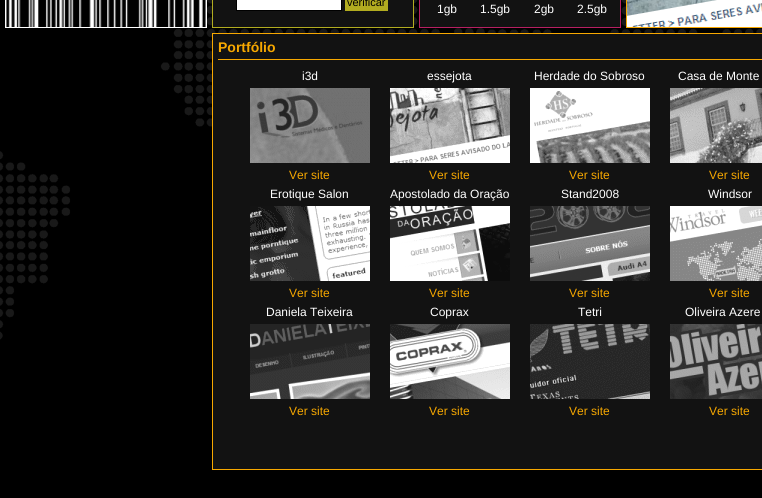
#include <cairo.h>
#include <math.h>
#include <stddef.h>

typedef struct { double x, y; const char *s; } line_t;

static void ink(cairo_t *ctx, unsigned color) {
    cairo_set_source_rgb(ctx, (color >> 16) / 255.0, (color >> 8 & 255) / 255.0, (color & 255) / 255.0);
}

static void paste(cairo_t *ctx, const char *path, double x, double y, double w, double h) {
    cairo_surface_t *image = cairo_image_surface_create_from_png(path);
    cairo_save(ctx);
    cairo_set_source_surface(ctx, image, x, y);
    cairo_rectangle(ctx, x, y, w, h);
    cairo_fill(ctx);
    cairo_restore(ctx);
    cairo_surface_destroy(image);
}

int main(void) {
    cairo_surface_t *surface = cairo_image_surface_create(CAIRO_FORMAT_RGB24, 762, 498);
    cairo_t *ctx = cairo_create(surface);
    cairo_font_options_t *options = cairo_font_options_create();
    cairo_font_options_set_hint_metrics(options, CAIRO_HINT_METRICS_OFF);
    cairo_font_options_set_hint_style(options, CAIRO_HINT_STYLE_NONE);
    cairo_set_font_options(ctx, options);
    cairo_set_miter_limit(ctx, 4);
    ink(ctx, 0x000000);
    cairo_paint(ctx);
    paste(ctx, "media/1.png", 0, 339, 212, 13);
    paste(ctx, "media/2.png", 0, 0, 762, 339);
    cairo_rectangle(ctx, 5.5, -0.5, 201, 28);
    ink(ctx, 0xFFFFFF);
    cairo_set_line_width(ctx, 1);
    cairo_stroke(ctx);
    paste(ctx, "media/3.png", 6, 0, 200, 27);
    ink(ctx, 0x121212);
    cairo_rectangle(ctx, 212.5, -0.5, 201, 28);
    cairo_fill_preserve(ctx);
    ink(ctx, 0xB2AC20);
    cairo_stroke(ctx);
    ink(ctx, 0xFFFFFF);
    cairo_rectangle(ctx, 236.5, -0.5, 105, 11);
    cairo_fill_preserve(ctx);
    ink(ctx, 0x000000);
    cairo_stroke(ctx);
    ink(ctx, 0xB2AC20);
    cairo_rectangle(ctx, 345, 0, 43, 11);
    cairo_fill(ctx);
    cairo_select_font_face(ctx, "Liberation Sans", CAIRO_FONT_SLANT_NORMAL, CAIRO_FONT_WEIGHT_NORMAL);
    cairo_set_font_size(ctx, 11);
    ink(ctx, 0x000000);
    cairo_move_to(ctx, 347, 6);
    cairo_show_text(ctx, "verificar");
    ink(ctx, 0x121212);
    cairo_rectangle(ctx, 419.5, -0.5, 201, 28);
    cairo_fill_preserve(ctx);
    ink(ctx, 0xB82062);
    cairo_stroke(ctx);
    cairo_set_font_size(ctx, 12);
    ink(ctx, 0xFFFFFF);
    {
        static const line_t items[] = {
            {437, 13, "1gb"},
            {480, 13, "1.5gb"},
            {534, 13, "2gb"},
            {577, 13, "2.5gb"},
        };
        for (size_t i = 0; i < sizeof items / sizeof *items; i++) {
            cairo_move_to(ctx, items[i].x, items[i].y);
            cairo_show_text(ctx, items[i].s);
        }
    }
    cairo_rectangle(ctx, 626.5, -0.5, 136, 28);
    ink(ctx, 0xF7A800);
    cairo_stroke(ctx);
    paste(ctx, "media/4.png", 627, 0, 135, 27);
    ink(ctx, 0x121212);
    cairo_rectangle(ctx, 212.5, 33.5, 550, 436);
    cairo_fill_preserve(ctx);
    ink(ctx, 0xF7A800);
    cairo_stroke(ctx);
    cairo_select_font_face(ctx, "Liberation Sans", CAIRO_FONT_SLANT_NORMAL, CAIRO_FONT_WEIGHT_BOLD);
    cairo_set_font_size(ctx, 14);
    cairo_move_to(ctx, 218, 52);
    cairo_show_text(ctx, "Portfólio");
    cairo_rectangle(ctx, 218, 59, 544, 1);
    cairo_fill(ctx);
    cairo_select_font_face(ctx, "Liberation Sans", CAIRO_FONT_SLANT_NORMAL, CAIRO_FONT_WEIGHT_NORMAL);
    cairo_set_font_size(ctx, 12);
    ink(ctx, 0xFFFFFF);
    cairo_move_to(ctx, 302, 80);
    cairo_show_text(ctx, "i3d");
    paste(ctx, "media/5.png", 250, 88, 120, 75);
    ink(ctx, 0xF7A800);
    cairo_move_to(ctx, 289, 179);
    cairo_show_text(ctx, "Ver site");
    ink(ctx, 0xFFFFFF);
    cairo_move_to(ctx, 427, 80);
    cairo_show_text(ctx, "essejota");
    paste(ctx, "media/6.png", 390, 88, 120, 75);
    ink(ctx, 0xF7A800);
    cairo_move_to(ctx, 429, 179);
    cairo_show_text(ctx, "Ver site");
    ink(ctx, 0xFFFFFF);
    cairo_move_to(ctx, 534, 80);
    cairo_show_text(ctx, "Herdade do Sobroso");
    paste(ctx, "media/7.png", 530, 88, 120, 75);
    ink(ctx, 0xF7A800);
    cairo_move_to(ctx, 569, 179);
    cairo_show_text(ctx, "Ver site");
    ink(ctx, 0xFFFFFF);
    cairo_move_to(ctx, 678, 80);
    cairo_show_text(ctx, "Casa de Monte");
    paste(ctx, "media/8.png", 670, 88, 92, 75);
    ink(ctx, 0xF7A800);
    cairo_move_to(ctx, 709, 179);
    cairo_show_text(ctx, "Ver site");
    ink(ctx, 0xFFFFFF);
    cairo_move_to(ctx, 270, 198);
    cairo_show_text(ctx, "Erotique Salon");
    paste(ctx, "media/9.png", 250, 206, 120, 75);
    ink(ctx, 0xF7A800);
    cairo_move_to(ctx, 289, 297);
    cairo_show_text(ctx, "Ver site");
    ink(ctx, 0xFFFFFF);
    cairo_move_to(ctx, 390, 198);
    cairo_show_text(ctx, "Apostolado da Oração");
    paste(ctx, "media/10.png", 390, 206, 120, 75);
    ink(ctx, 0xF7A800);
    cairo_move_to(ctx, 429, 297);
    cairo_show_text(ctx, "Ver site");
    ink(ctx, 0xFFFFFF);
    cairo_move_to(ctx, 561, 198);
    cairo_show_text(ctx, "Stand2008");
    paste(ctx, "media/11.png", 530, 206, 120, 75);
    ink(ctx, 0xF7A800);
    cairo_move_to(ctx, 569, 297);
    cairo_show_text(ctx, "Ver site");
    ink(ctx, 0xFFFFFF);
    cairo_move_to(ctx, 708, 198);
    cairo_show_text(ctx, "Windsor");
    paste(ctx, "media/12.png", 670, 206, 92, 75);
    ink(ctx, 0xF7A800);
    cairo_move_to(ctx, 709, 297);
    cairo_show_text(ctx, "Ver site");
    ink(ctx, 0xFFFFFF);
    cairo_move_to(ctx, 266, 316);
    cairo_show_text(ctx, "Daniela Teixeira");
    paste(ctx, "media/13.png", 250, 324, 120, 75);
    ink(ctx, 0xF7A800);
    cairo_move_to(ctx, 289, 415);
    cairo_show_text(ctx, "Ver site");
    ink(ctx, 0xFFFFFF);
    cairo_move_to(ctx, 430, 316);
    cairo_show_text(ctx, "Coprax");
    paste(ctx, "media/14.png", 390, 324, 120, 75);
    ink(ctx, 0xF7A800);
    cairo_move_to(ctx, 429, 415);
    cairo_show_text(ctx, "Ver site");
    ink(ctx, 0xFFFFFF);
    cairo_move_to(ctx, 578, 316);
    cairo_show_text(ctx, "Tetri");
    paste(ctx, "media/15.png", 530, 324, 120, 75);
    ink(ctx, 0xF7A800);
    cairo_move_to(ctx, 569, 415);
    cairo_show_text(ctx, "Ver site");
    ink(ctx, 0xFFFFFF);
    cairo_move_to(ctx, 685, 316);
    cairo_show_text(ctx, "Oliveira Azere");
    paste(ctx, "media/16.png", 670, 324, 92, 75);
    ink(ctx, 0xF7A800);
    cairo_move_to(ctx, 709, 415);
    cairo_show_text(ctx, "Ver site");
    cairo_surface_write_to_png(surface, "image.png");
    cairo_font_options_destroy(options);
    cairo_destroy(ctx);
    cairo_surface_destroy(surface);
    return 0;
}
